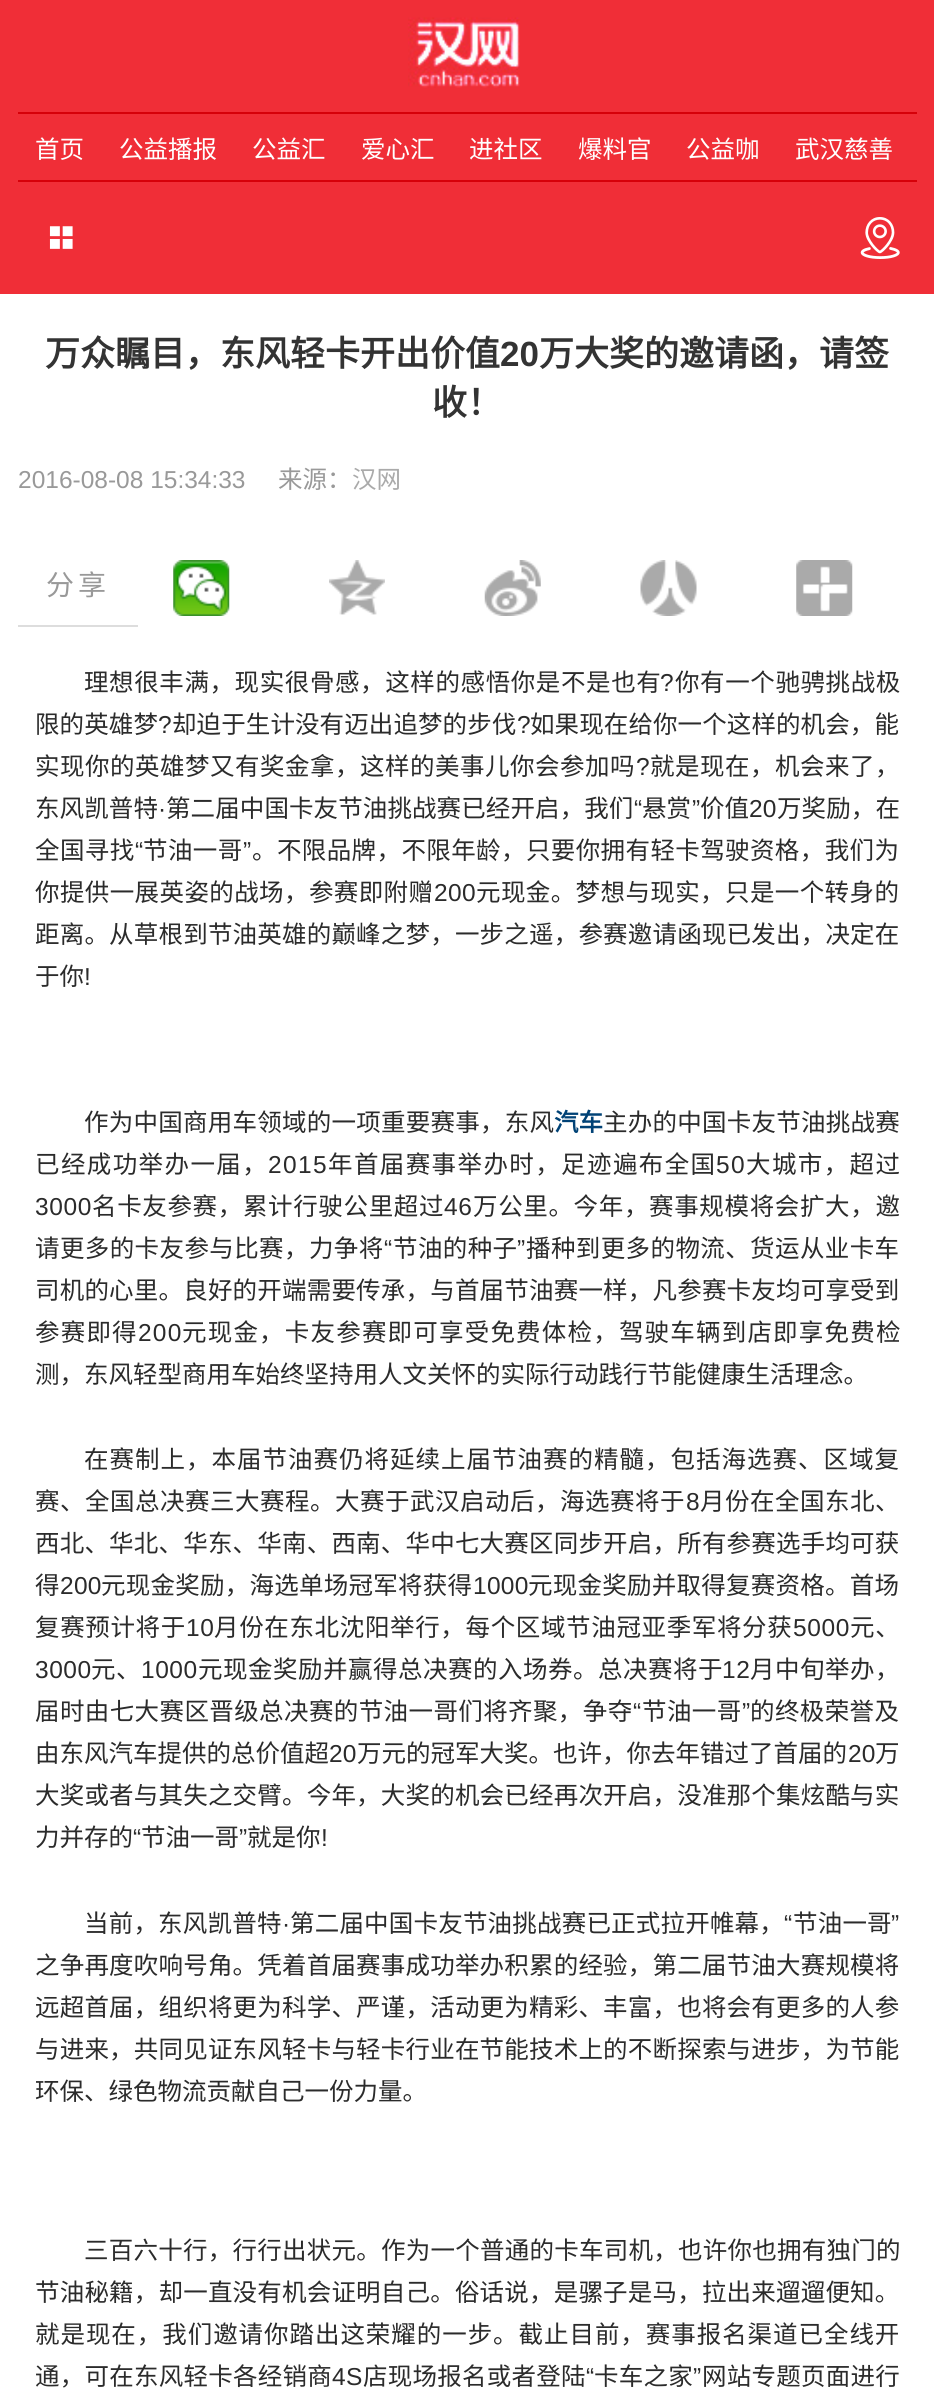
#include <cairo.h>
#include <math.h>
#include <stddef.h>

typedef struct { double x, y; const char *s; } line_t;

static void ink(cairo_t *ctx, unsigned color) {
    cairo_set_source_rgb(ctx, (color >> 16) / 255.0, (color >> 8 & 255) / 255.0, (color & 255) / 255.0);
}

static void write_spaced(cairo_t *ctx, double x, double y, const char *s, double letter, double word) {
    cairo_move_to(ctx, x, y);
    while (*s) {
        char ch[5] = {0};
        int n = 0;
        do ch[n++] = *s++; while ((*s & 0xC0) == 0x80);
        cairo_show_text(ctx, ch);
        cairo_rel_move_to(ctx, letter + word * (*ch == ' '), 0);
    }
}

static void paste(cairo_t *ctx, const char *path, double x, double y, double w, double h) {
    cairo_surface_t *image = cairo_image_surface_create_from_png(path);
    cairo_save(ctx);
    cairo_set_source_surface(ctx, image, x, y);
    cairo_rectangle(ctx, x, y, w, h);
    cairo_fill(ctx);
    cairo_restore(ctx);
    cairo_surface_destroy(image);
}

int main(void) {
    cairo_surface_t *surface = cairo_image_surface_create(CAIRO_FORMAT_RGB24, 934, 2402);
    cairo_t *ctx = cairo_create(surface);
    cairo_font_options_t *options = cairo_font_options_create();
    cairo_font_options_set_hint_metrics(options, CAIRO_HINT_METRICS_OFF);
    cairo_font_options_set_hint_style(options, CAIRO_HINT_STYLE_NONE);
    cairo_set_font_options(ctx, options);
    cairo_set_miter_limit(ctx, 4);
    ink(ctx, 0xFFFFFF);
    cairo_paint(ctx);
    ink(ctx, 0xF02E37);
    cairo_rectangle(ctx, 0, 0, 934, 294);
    cairo_fill(ctx);
    paste(ctx, "media/1.png", 408, 17, 112, 71);
    ink(ctx, 0xD60009);
    cairo_rectangle(ctx, 18, 112, 899, 2);
    cairo_fill(ctx);
    cairo_rectangle(ctx, 18, 180, 899, 2);
    cairo_fill(ctx);
    cairo_select_font_face(ctx, "Noto Sans CJK SC", CAIRO_FONT_SLANT_NORMAL, CAIRO_FONT_WEIGHT_NORMAL);
    cairo_set_font_size(ctx, 24.5);
    ink(ctx, 0xFFFFFF);
    {
        static const line_t items[] = {
            {35, 158, "首页"},
            {119, 158, "公益播报"},
            {252, 158, "公益汇"},
            {361, 158, "爱心汇"},
            {469, 158, "进社区"},
            {578, 158, "爆料官"},
            {686, 158, "公益咖"},
            {795, 158, "武汉慈善"},
        };
        for (size_t i = 0; i < sizeof items / sizeof *items; i++) {
            cairo_move_to(ctx, items[i].x, items[i].y);
            cairo_show_text(ctx, items[i].s);
        }
    }
    paste(ctx, "media/2.png", 49, 226, 24, 23);
    paste(ctx, "media/3.png", 860, 217, 40, 42);
    cairo_select_font_face(ctx, "Noto Sans CJK SC", CAIRO_FONT_SLANT_NORMAL, CAIRO_FONT_WEIGHT_BOLD);
    cairo_set_font_size(ctx, 35);
    ink(ctx, 0x333333);
    cairo_move_to(ctx, 45, 366);
    cairo_show_text(ctx, "万众瞩目，东风轻卡开出价值");
    cairo_select_font_face(ctx, "Liberation Sans", CAIRO_FONT_SLANT_NORMAL, CAIRO_FONT_WEIGHT_BOLD);
    cairo_move_to(ctx, 500, 366);
    cairo_show_text(ctx, "20");
    cairo_select_font_face(ctx, "Noto Sans CJK SC", CAIRO_FONT_SLANT_NORMAL, CAIRO_FONT_WEIGHT_BOLD);
    cairo_move_to(ctx, 539, 366);
    cairo_show_text(ctx, "万大奖的邀请函，请签");
    cairo_move_to(ctx, 432, 415);
    cairo_show_text(ctx, "收！");
    cairo_select_font_face(ctx, "Liberation Sans", CAIRO_FONT_SLANT_NORMAL, CAIRO_FONT_WEIGHT_NORMAL);
    cairo_set_font_size(ctx, 24.5);
    ink(ctx, 0x999999);
    cairo_move_to(ctx, 18, 488);
    cairo_show_text(ctx, "2016-08-08 15:34:33");
    cairo_select_font_face(ctx, "Noto Sans CJK SC", CAIRO_FONT_SLANT_NORMAL, CAIRO_FONT_WEIGHT_NORMAL);
    cairo_move_to(ctx, 278, 488);
    cairo_show_text(ctx, "来源：");
    ink(ctx, 0xAAAAAA);
    cairo_move_to(ctx, 352, 488);
    cairo_show_text(ctx, "汉网");
    ink(ctx, 0xDDDDDD);
    cairo_rectangle(ctx, 18, 625, 120, 2);
    cairo_fill(ctx);
    cairo_set_font_size(ctx, 28);
    ink(ctx, 0x999999);
    write_spaced(ctx, 46, 595, "分享", 4, 0);
    paste(ctx, "media/4.png", 173, 560, 57, 56);
    paste(ctx, "media/5.png", 329, 560, 56, 55);
    paste(ctx, "media/6.png", 484, 560, 57, 56);
    paste(ctx, "media/7.png", 640, 560, 57, 56);
    paste(ctx, "media/8.png", 796, 560, 57, 56);
    cairo_set_font_size(ctx, 24.5);
    ink(ctx, 0x2B2B2B);
    write_spaced(ctx, 84, 691, "理想很丰满，现实很骨感，这样的感悟你是不是也有", 0.6, 0);
    cairo_select_font_face(ctx, "Liberation Sans", CAIRO_FONT_SLANT_NORMAL, CAIRO_FONT_WEIGHT_NORMAL);
    write_spaced(ctx, 660, 691, "?", 0.6, 0);
    cairo_select_font_face(ctx, "Noto Sans CJK SC", CAIRO_FONT_SLANT_NORMAL, CAIRO_FONT_WEIGHT_NORMAL);
    write_spaced(ctx, 675, 691, "你有一个驰骋挑战极", 0.6, 0);
    write_spaced(ctx, 35, 733, "限的英雄梦", 0.1, 0);
    cairo_select_font_face(ctx, "Liberation Sans", CAIRO_FONT_SLANT_NORMAL, CAIRO_FONT_WEIGHT_NORMAL);
    write_spaced(ctx, 158, 733, "?", 0.1, 0);
    cairo_select_font_face(ctx, "Noto Sans CJK SC", CAIRO_FONT_SLANT_NORMAL, CAIRO_FONT_WEIGHT_NORMAL);
    write_spaced(ctx, 172, 733, "却迫于生计没有迈出追梦的步伐", 0.1, 0);
    cairo_select_font_face(ctx, "Liberation Sans", CAIRO_FONT_SLANT_NORMAL, CAIRO_FONT_WEIGHT_NORMAL);
    write_spaced(ctx, 517, 733, "?", 0.1, 0);
    cairo_select_font_face(ctx, "Noto Sans CJK SC", CAIRO_FONT_SLANT_NORMAL, CAIRO_FONT_WEIGHT_NORMAL);
    write_spaced(ctx, 530, 733, "如果现在给你一个这样的机会，能", 0.1, 0);
    write_spaced(ctx, 35, 775, "实现你的英雄梦又有奖金拿，这样的美事儿你会参加吗", 0.5, 0);
    cairo_select_font_face(ctx, "Liberation Sans", CAIRO_FONT_SLANT_NORMAL, CAIRO_FONT_WEIGHT_NORMAL);
    write_spaced(ctx, 636, 775, "?", 0.5, 0);
    cairo_select_font_face(ctx, "Noto Sans CJK SC", CAIRO_FONT_SLANT_NORMAL, CAIRO_FONT_WEIGHT_NORMAL);
    write_spaced(ctx, 650, 775, "就是现在，机会来了，", 0.5, 0);
    write_spaced(ctx, 35, 817, "东风凯普特", 0.1, 0);
    write_spaced(ctx, 166, 817, "第二届中国卡友节油挑战赛已经开启，我们", 0.1, 0);
    cairo_select_font_face(ctx, "Liberation Sans", CAIRO_FONT_SLANT_NORMAL, CAIRO_FONT_WEIGHT_NORMAL);
    write_spaced(ctx, 634, 817, "“", 0.1, 0);
    cairo_select_font_face(ctx, "Noto Sans CJK SC", CAIRO_FONT_SLANT_NORMAL, CAIRO_FONT_WEIGHT_NORMAL);
    write_spaced(ctx, 642, 817, "悬赏", 0.1, 0);
    cairo_select_font_face(ctx, "Liberation Sans", CAIRO_FONT_SLANT_NORMAL, CAIRO_FONT_WEIGHT_NORMAL);
    write_spaced(ctx, 692, 817, "”", 0.1, 0);
    cairo_select_font_face(ctx, "Noto Sans CJK SC", CAIRO_FONT_SLANT_NORMAL, CAIRO_FONT_WEIGHT_NORMAL);
    write_spaced(ctx, 700, 817, "价值", 0.1, 0);
    cairo_select_font_face(ctx, "Liberation Sans", CAIRO_FONT_SLANT_NORMAL, CAIRO_FONT_WEIGHT_NORMAL);
    write_spaced(ctx, 749, 817, "20", 0.1, 0);
    cairo_select_font_face(ctx, "Noto Sans CJK SC", CAIRO_FONT_SLANT_NORMAL, CAIRO_FONT_WEIGHT_NORMAL);
    write_spaced(ctx, 777, 817, "万奖励，在", 0.1, 0);
    cairo_select_font_face(ctx, "Liberation Sans", CAIRO_FONT_SLANT_NORMAL, CAIRO_FONT_WEIGHT_NORMAL);
    write_spaced(ctx, 158, 817, "·", 0.1, 0);
    cairo_select_font_face(ctx, "Noto Sans CJK SC", CAIRO_FONT_SLANT_NORMAL, CAIRO_FONT_WEIGHT_NORMAL);
    write_spaced(ctx, 35, 859, "全国寻找", 0.4, 0);
    cairo_select_font_face(ctx, "Liberation Sans", CAIRO_FONT_SLANT_NORMAL, CAIRO_FONT_WEIGHT_NORMAL);
    write_spaced(ctx, 135, 859, "“", 0.4, 0);
    cairo_select_font_face(ctx, "Noto Sans CJK SC", CAIRO_FONT_SLANT_NORMAL, CAIRO_FONT_WEIGHT_NORMAL);
    write_spaced(ctx, 143, 859, "节油一哥", 0.4, 0);
    cairo_select_font_face(ctx, "Liberation Sans", CAIRO_FONT_SLANT_NORMAL, CAIRO_FONT_WEIGHT_NORMAL);
    write_spaced(ctx, 243, 859, "”", 0.4, 0);
    cairo_select_font_face(ctx, "Noto Sans CJK SC", CAIRO_FONT_SLANT_NORMAL, CAIRO_FONT_WEIGHT_NORMAL);
    write_spaced(ctx, 252, 859, "。不限品牌，不限年龄，只要你拥有轻卡驾驶资格，我们为", 0.4, 0);
    write_spaced(ctx, 35, 901, "你提供一展英姿的战场，参赛即附赠", 0.4, 0);
    cairo_select_font_face(ctx, "Liberation Sans", CAIRO_FONT_SLANT_NORMAL, CAIRO_FONT_WEIGHT_NORMAL);
    write_spaced(ctx, 434, 901, "200", 0.4, 0);
    cairo_select_font_face(ctx, "Noto Sans CJK SC", CAIRO_FONT_SLANT_NORMAL, CAIRO_FONT_WEIGHT_NORMAL);
    write_spaced(ctx, 476, 901, "元现金。梦想与现实，只是一个转身的", 0.4, 0);
    write_spaced(ctx, 35, 943, "距离。从草根到节油英雄的巅峰之梦，一步之遥，参赛邀请函现已发出，决定在", 0.2, 0);
    cairo_move_to(ctx, 35, 985);
    cairo_show_text(ctx, "于你");
    cairo_select_font_face(ctx, "Liberation Sans", CAIRO_FONT_SLANT_NORMAL, CAIRO_FONT_WEIGHT_NORMAL);
    cairo_move_to(ctx, 84, 985);
    cairo_show_text(ctx, "!");
    cairo_select_font_face(ctx, "Noto Sans CJK SC", CAIRO_FONT_SLANT_NORMAL, CAIRO_FONT_WEIGHT_NORMAL);
    write_spaced(ctx, 84, 1131, "作为中国商用车领域的一项重要赛事，东风", 0.25, 0);
    cairo_select_font_face(ctx, "Noto Sans CJK SC", CAIRO_FONT_SLANT_NORMAL, CAIRO_FONT_WEIGHT_BOLD);
    ink(ctx, 0x004276);
    cairo_move_to(ctx, 554, 1131);
    cairo_show_text(ctx, "汽车");
    cairo_select_font_face(ctx, "Noto Sans CJK SC", CAIRO_FONT_SLANT_NORMAL, CAIRO_FONT_WEIGHT_NORMAL);
    ink(ctx, 0x2B2B2B);
    write_spaced(ctx, 603, 1131, "主办的中国卡友节油挑战赛", 0.25, 0);
    write_spaced(ctx, 35, 1173, "已经成功举办一届，", 1.4, 0);
    cairo_select_font_face(ctx, "Liberation Sans", CAIRO_FONT_SLANT_NORMAL, CAIRO_FONT_WEIGHT_NORMAL);
    write_spaced(ctx, 268, 1173, "2015", 1.4, 0);
    cairo_select_font_face(ctx, "Noto Sans CJK SC", CAIRO_FONT_SLANT_NORMAL, CAIRO_FONT_WEIGHT_NORMAL);
    write_spaced(ctx, 328, 1173, "年首届赛事举办时，足迹遍布全国", 1.4, 0);
    cairo_select_font_face(ctx, "Liberation Sans", CAIRO_FONT_SLANT_NORMAL, CAIRO_FONT_WEIGHT_NORMAL);
    write_spaced(ctx, 716, 1173, "50", 1.4, 0);
    cairo_select_font_face(ctx, "Noto Sans CJK SC", CAIRO_FONT_SLANT_NORMAL, CAIRO_FONT_WEIGHT_NORMAL);
    write_spaced(ctx, 746, 1173, "大城市，超过", 1.4, 0);
    cairo_select_font_face(ctx, "Liberation Sans", CAIRO_FONT_SLANT_NORMAL, CAIRO_FONT_WEIGHT_NORMAL);
    write_spaced(ctx, 35, 1215, "3000", 0.65, 0);
    cairo_select_font_face(ctx, "Noto Sans CJK SC", CAIRO_FONT_SLANT_NORMAL, CAIRO_FONT_WEIGHT_NORMAL);
    write_spaced(ctx, 92, 1215, "名卡友参赛，累计行驶公里超过", 0.65, 0);
    cairo_select_font_face(ctx, "Liberation Sans", CAIRO_FONT_SLANT_NORMAL, CAIRO_FONT_WEIGHT_NORMAL);
    write_spaced(ctx, 444, 1215, "46", 0.65, 0);
    cairo_select_font_face(ctx, "Noto Sans CJK SC", CAIRO_FONT_SLANT_NORMAL, CAIRO_FONT_WEIGHT_NORMAL);
    write_spaced(ctx, 473, 1215, "万公里。今年，赛事规模将会扩大，邀", 0.65, 0);
    write_spaced(ctx, 35, 1257, "请更多的卡友参与比赛，力争将", 0.4, 0);
    cairo_select_font_face(ctx, "Liberation Sans", CAIRO_FONT_SLANT_NORMAL, CAIRO_FONT_WEIGHT_NORMAL);
    write_spaced(ctx, 384, 1257, "“", 0.4, 0);
    cairo_select_font_face(ctx, "Noto Sans CJK SC", CAIRO_FONT_SLANT_NORMAL, CAIRO_FONT_WEIGHT_NORMAL);
    write_spaced(ctx, 393, 1257, "节油的种子", 0.4, 0);
    cairo_select_font_face(ctx, "Liberation Sans", CAIRO_FONT_SLANT_NORMAL, CAIRO_FONT_WEIGHT_NORMAL);
    write_spaced(ctx, 517, 1257, "”", 0.4, 0);
    cairo_select_font_face(ctx, "Noto Sans CJK SC", CAIRO_FONT_SLANT_NORMAL, CAIRO_FONT_WEIGHT_NORMAL);
    write_spaced(ctx, 526, 1257, "播种到更多的物流、货运从业卡车", 0.4, 0);
    write_spaced(ctx, 35, 1299, "司机的心里。良好的开端需要传承，与首届节油赛一样，凡参赛卡友均可享受到", 0.2, 0);
    write_spaced(ctx, 35, 1341, "参赛即得", 1.2, 0);
    cairo_select_font_face(ctx, "Liberation Sans", CAIRO_FONT_SLANT_NORMAL, CAIRO_FONT_WEIGHT_NORMAL);
    write_spaced(ctx, 138, 1341, "200", 1.2, 0);
    cairo_select_font_face(ctx, "Noto Sans CJK SC", CAIRO_FONT_SLANT_NORMAL, CAIRO_FONT_WEIGHT_NORMAL);
    write_spaced(ctx, 182, 1341, "元现金，卡友参赛即可享受免费体检，驾驶车辆到店即享免费检", 1.2, 0);
    cairo_move_to(ctx, 35, 1383);
    cairo_show_text(ctx, "测，东风轻型商用车始终坚持用人文关怀的实际行动践行节能健康生活理念。");
    write_spaced(ctx, 84, 1468, "在赛制上，本届节油赛仍将延续上届节油赛的精髓，包括海选赛、区域复", 1, 0);
    write_spaced(ctx, 35, 1510, "赛、全国总决赛三大赛程。大赛于武汉启动后，海选赛将于", 0.5, 0);
    cairo_select_font_face(ctx, "Liberation Sans", CAIRO_FONT_SLANT_NORMAL, CAIRO_FONT_WEIGHT_NORMAL);
    write_spaced(ctx, 686, 1510, "8", 0.5, 0);
    cairo_select_font_face(ctx, "Noto Sans CJK SC", CAIRO_FONT_SLANT_NORMAL, CAIRO_FONT_WEIGHT_NORMAL);
    write_spaced(ctx, 700, 1510, "月份在全国东北、", 0.5, 0);
    write_spaced(ctx, 35, 1552, "西北、华北、华东、华南、西南、华中七大赛区同步开启，所有参赛选手均可获", 0.2, 0);
    write_spaced(ctx, 35, 1594, "得", 0.25, 0);
    cairo_select_font_face(ctx, "Liberation Sans", CAIRO_FONT_SLANT_NORMAL, CAIRO_FONT_WEIGHT_NORMAL);
    write_spaced(ctx, 60, 1594, "200", 0.25, 0);
    cairo_select_font_face(ctx, "Noto Sans CJK SC", CAIRO_FONT_SLANT_NORMAL, CAIRO_FONT_WEIGHT_NORMAL);
    write_spaced(ctx, 101, 1594, "元现金奖励，海选单场冠军将获得", 0.25, 0);
    cairo_select_font_face(ctx, "Liberation Sans", CAIRO_FONT_SLANT_NORMAL, CAIRO_FONT_WEIGHT_NORMAL);
    write_spaced(ctx, 473, 1594, "1000", 0.25, 0);
    cairo_select_font_face(ctx, "Noto Sans CJK SC", CAIRO_FONT_SLANT_NORMAL, CAIRO_FONT_WEIGHT_NORMAL);
    write_spaced(ctx, 528, 1594, "元现金奖励并取得复赛资格。首场", 0.25, 0);
    write_spaced(ctx, 35, 1636, "复赛预计将于", 0.65, 0);
    cairo_select_font_face(ctx, "Liberation Sans", CAIRO_FONT_SLANT_NORMAL, CAIRO_FONT_WEIGHT_NORMAL);
    write_spaced(ctx, 186, 1636, "10", 0.65, 0);
    cairo_select_font_face(ctx, "Noto Sans CJK SC", CAIRO_FONT_SLANT_NORMAL, CAIRO_FONT_WEIGHT_NORMAL);
    write_spaced(ctx, 214, 1636, "月份在东北沈阳举行，每个区域节油冠亚季军将分获", 0.65, 0);
    cairo_select_font_face(ctx, "Liberation Sans", CAIRO_FONT_SLANT_NORMAL, CAIRO_FONT_WEIGHT_NORMAL);
    write_spaced(ctx, 793, 1636, "5000", 0.65, 0);
    cairo_select_font_face(ctx, "Noto Sans CJK SC", CAIRO_FONT_SLANT_NORMAL, CAIRO_FONT_WEIGHT_NORMAL);
    write_spaced(ctx, 850, 1636, "元、", 0.65, 0);
    cairo_select_font_face(ctx, "Liberation Sans", CAIRO_FONT_SLANT_NORMAL, CAIRO_FONT_WEIGHT_NORMAL);
    write_spaced(ctx, 35, 1678, "3000", 0.5, 0);
    cairo_select_font_face(ctx, "Noto Sans CJK SC", CAIRO_FONT_SLANT_NORMAL, CAIRO_FONT_WEIGHT_NORMAL);
    write_spaced(ctx, 91, 1678, "元、", 0.5, 0);
    cairo_select_font_face(ctx, "Liberation Sans", CAIRO_FONT_SLANT_NORMAL, CAIRO_FONT_WEIGHT_NORMAL);
    write_spaced(ctx, 141, 1678, "1000", 0.5, 0);
    cairo_select_font_face(ctx, "Noto Sans CJK SC", CAIRO_FONT_SLANT_NORMAL, CAIRO_FONT_WEIGHT_NORMAL);
    write_spaced(ctx, 198, 1678, "元现金奖励并赢得总决赛的入场券。总决赛将于", 0.5, 0);
    cairo_select_font_face(ctx, "Liberation Sans", CAIRO_FONT_SLANT_NORMAL, CAIRO_FONT_WEIGHT_NORMAL);
    write_spaced(ctx, 722, 1678, "12", 0.5, 0);
    cairo_select_font_face(ctx, "Noto Sans CJK SC", CAIRO_FONT_SLANT_NORMAL, CAIRO_FONT_WEIGHT_NORMAL);
    write_spaced(ctx, 750, 1678, "月中旬举办，", 0.5, 0);
    write_spaced(ctx, 35, 1720, "届时由七大赛区晋级总决赛的节油一哥们将齐聚，争夺", 0.4, 0);
    cairo_select_font_face(ctx, "Liberation Sans", CAIRO_FONT_SLANT_NORMAL, CAIRO_FONT_WEIGHT_NORMAL);
    write_spaced(ctx, 633, 1720, "“", 0.4, 0);
    cairo_select_font_face(ctx, "Noto Sans CJK SC", CAIRO_FONT_SLANT_NORMAL, CAIRO_FONT_WEIGHT_NORMAL);
    write_spaced(ctx, 642, 1720, "节油一哥", 0.4, 0);
    cairo_select_font_face(ctx, "Liberation Sans", CAIRO_FONT_SLANT_NORMAL, CAIRO_FONT_WEIGHT_NORMAL);
    write_spaced(ctx, 742, 1720, "”", 0.4, 0);
    cairo_select_font_face(ctx, "Noto Sans CJK SC", CAIRO_FONT_SLANT_NORMAL, CAIRO_FONT_WEIGHT_NORMAL);
    write_spaced(ctx, 750, 1720, "的终极荣誉及", 0.4, 0);
    cairo_move_to(ctx, 35, 1762);
    cairo_show_text(ctx, "由东风汽车提供的总价值超");
    cairo_select_font_face(ctx, "Liberation Sans", CAIRO_FONT_SLANT_NORMAL, CAIRO_FONT_WEIGHT_NORMAL);
    cairo_move_to(ctx, 329, 1762);
    cairo_show_text(ctx, "20");
    cairo_select_font_face(ctx, "Noto Sans CJK SC", CAIRO_FONT_SLANT_NORMAL, CAIRO_FONT_WEIGHT_NORMAL);
    cairo_move_to(ctx, 357, 1762);
    cairo_show_text(ctx, "万元的冠军大奖。也许，你去年错过了首届的");
    cairo_select_font_face(ctx, "Liberation Sans", CAIRO_FONT_SLANT_NORMAL, CAIRO_FONT_WEIGHT_NORMAL);
    cairo_move_to(ctx, 848, 1762);
    cairo_show_text(ctx, "20");
    cairo_select_font_face(ctx, "Noto Sans CJK SC", CAIRO_FONT_SLANT_NORMAL, CAIRO_FONT_WEIGHT_NORMAL);
    cairo_move_to(ctx, 875, 1762);
    cairo_show_text(ctx, "万");
    write_spaced(ctx, 35, 1804, "大奖或者与其失之交臂。今年，大奖的机会已经再次开启，没准那个集炫酷与实", 0.2, 0);
    cairo_move_to(ctx, 35, 1846);
    cairo_show_text(ctx, "力并存的");
    cairo_select_font_face(ctx, "Liberation Sans", CAIRO_FONT_SLANT_NORMAL, CAIRO_FONT_WEIGHT_NORMAL);
    cairo_move_to(ctx, 133, 1846);
    cairo_show_text(ctx, "“");
    cairo_select_font_face(ctx, "Noto Sans CJK SC", CAIRO_FONT_SLANT_NORMAL, CAIRO_FONT_WEIGHT_NORMAL);
    cairo_move_to(ctx, 141, 1846);
    cairo_show_text(ctx, "节油一哥");
    cairo_select_font_face(ctx, "Liberation Sans", CAIRO_FONT_SLANT_NORMAL, CAIRO_FONT_WEIGHT_NORMAL);
    cairo_move_to(ctx, 239, 1846);
    cairo_show_text(ctx, "”");
    cairo_select_font_face(ctx, "Noto Sans CJK SC", CAIRO_FONT_SLANT_NORMAL, CAIRO_FONT_WEIGHT_NORMAL);
    cairo_move_to(ctx, 247, 1846);
    cairo_show_text(ctx, "就是你");
    cairo_select_font_face(ctx, "Liberation Sans", CAIRO_FONT_SLANT_NORMAL, CAIRO_FONT_WEIGHT_NORMAL);
    cairo_move_to(ctx, 321, 1846);
    cairo_show_text(ctx, "!");
    cairo_select_font_face(ctx, "Noto Sans CJK SC", CAIRO_FONT_SLANT_NORMAL, CAIRO_FONT_WEIGHT_NORMAL);
    write_spaced(ctx, 84, 1932, "当前，东风凯普特", 0.2, 0);
    write_spaced(ctx, 290, 1932, "第二届中国卡友节油挑战赛已正式拉开帷幕，", 0.2, 0);
    cairo_select_font_face(ctx, "Liberation Sans", CAIRO_FONT_SLANT_NORMAL, CAIRO_FONT_WEIGHT_NORMAL);
    write_spaced(ctx, 784, 1932, "“", 0.2, 0);
    cairo_select_font_face(ctx, "Noto Sans CJK SC", CAIRO_FONT_SLANT_NORMAL, CAIRO_FONT_WEIGHT_NORMAL);
    write_spaced(ctx, 793, 1932, "节油一哥", 0.2, 0);
    cairo_select_font_face(ctx, "Liberation Sans", CAIRO_FONT_SLANT_NORMAL, CAIRO_FONT_WEIGHT_NORMAL);
    write_spaced(ctx, 891, 1932, "”", 0.2, 0);
    write_spaced(ctx, 282, 1932, "·", 0.2, 0);
    cairo_select_font_face(ctx, "Noto Sans CJK SC", CAIRO_FONT_SLANT_NORMAL, CAIRO_FONT_WEIGHT_NORMAL);
    {
        static const line_t items[] = {
            {35, 1974, "之争再度吹响号角。凭着首届赛事成功举办积累的经验，第二届节油大赛规模将"},
            {35, 2016, "远超首届，组织将更为科学、严谨，活动更为精彩、丰富，也将会有更多的人参"},
            {35, 2058, "与进来，共同见证东风轻卡与轻卡行业在节能技术上的不断探索与进步，为节能"},
        };
        for (size_t i = 0; i < sizeof items / sizeof *items; i++) {
            write_spaced(ctx, items[i].x, items[i].y, items[i].s, 0.2, 0);
        }
    }
    cairo_move_to(ctx, 35, 2100);
    cairo_show_text(ctx, "环保、绿色物流贡献自己一份力量。");
    write_spaced(ctx, 84, 2259, "三百六十行，行行出状元。作为一个普通的卡车司机，也许你也拥有独门的", 0.25, 0);
    write_spaced(ctx, 35, 2301, "节油秘籍，却一直没有机会证明自己。俗话说，是骡子是马，拉出来遛遛便知。", 0.2, 0);
    write_spaced(ctx, 35, 2343, "就是现在，我们邀请你踏出这荣耀的一步。截止目前，赛事报名渠道已全线开", 0.95, 0);
    write_spaced(ctx, 35, 2385, "通，可在东风轻卡各经销商", 0.25, 0);
    cairo_select_font_face(ctx, "Liberation Sans", CAIRO_FONT_SLANT_NORMAL, CAIRO_FONT_WEIGHT_NORMAL);
    write_spaced(ctx, 332, 2385, "4S", 0.25, 0);
    cairo_select_font_face(ctx, "Noto Sans CJK SC", CAIRO_FONT_SLANT_NORMAL, CAIRO_FONT_WEIGHT_NORMAL);
    write_spaced(ctx, 363, 2385, "店现场报名或者登陆", 0.25, 0);
    cairo_select_font_face(ctx, "Liberation Sans", CAIRO_FONT_SLANT_NORMAL, CAIRO_FONT_WEIGHT_NORMAL);
    write_spaced(ctx, 586, 2385, "“", 0.25, 0);
    cairo_select_font_face(ctx, "Noto Sans CJK SC", CAIRO_FONT_SLANT_NORMAL, CAIRO_FONT_WEIGHT_NORMAL);
    write_spaced(ctx, 594, 2385, "卡车之家", 0.25, 0);
    cairo_select_font_face(ctx, "Liberation Sans", CAIRO_FONT_SLANT_NORMAL, CAIRO_FONT_WEIGHT_NORMAL);
    write_spaced(ctx, 693, 2385, "”", 0.25, 0);
    cairo_select_font_face(ctx, "Noto Sans CJK SC", CAIRO_FONT_SLANT_NORMAL, CAIRO_FONT_WEIGHT_NORMAL);
    write_spaced(ctx, 702, 2385, "网站专题页面进行", 0.25, 0);
    cairo_surface_write_to_png(surface, "image.png");
    cairo_font_options_destroy(options);
    cairo_destroy(ctx);
    cairo_surface_destroy(surface);
    return 0;
}
